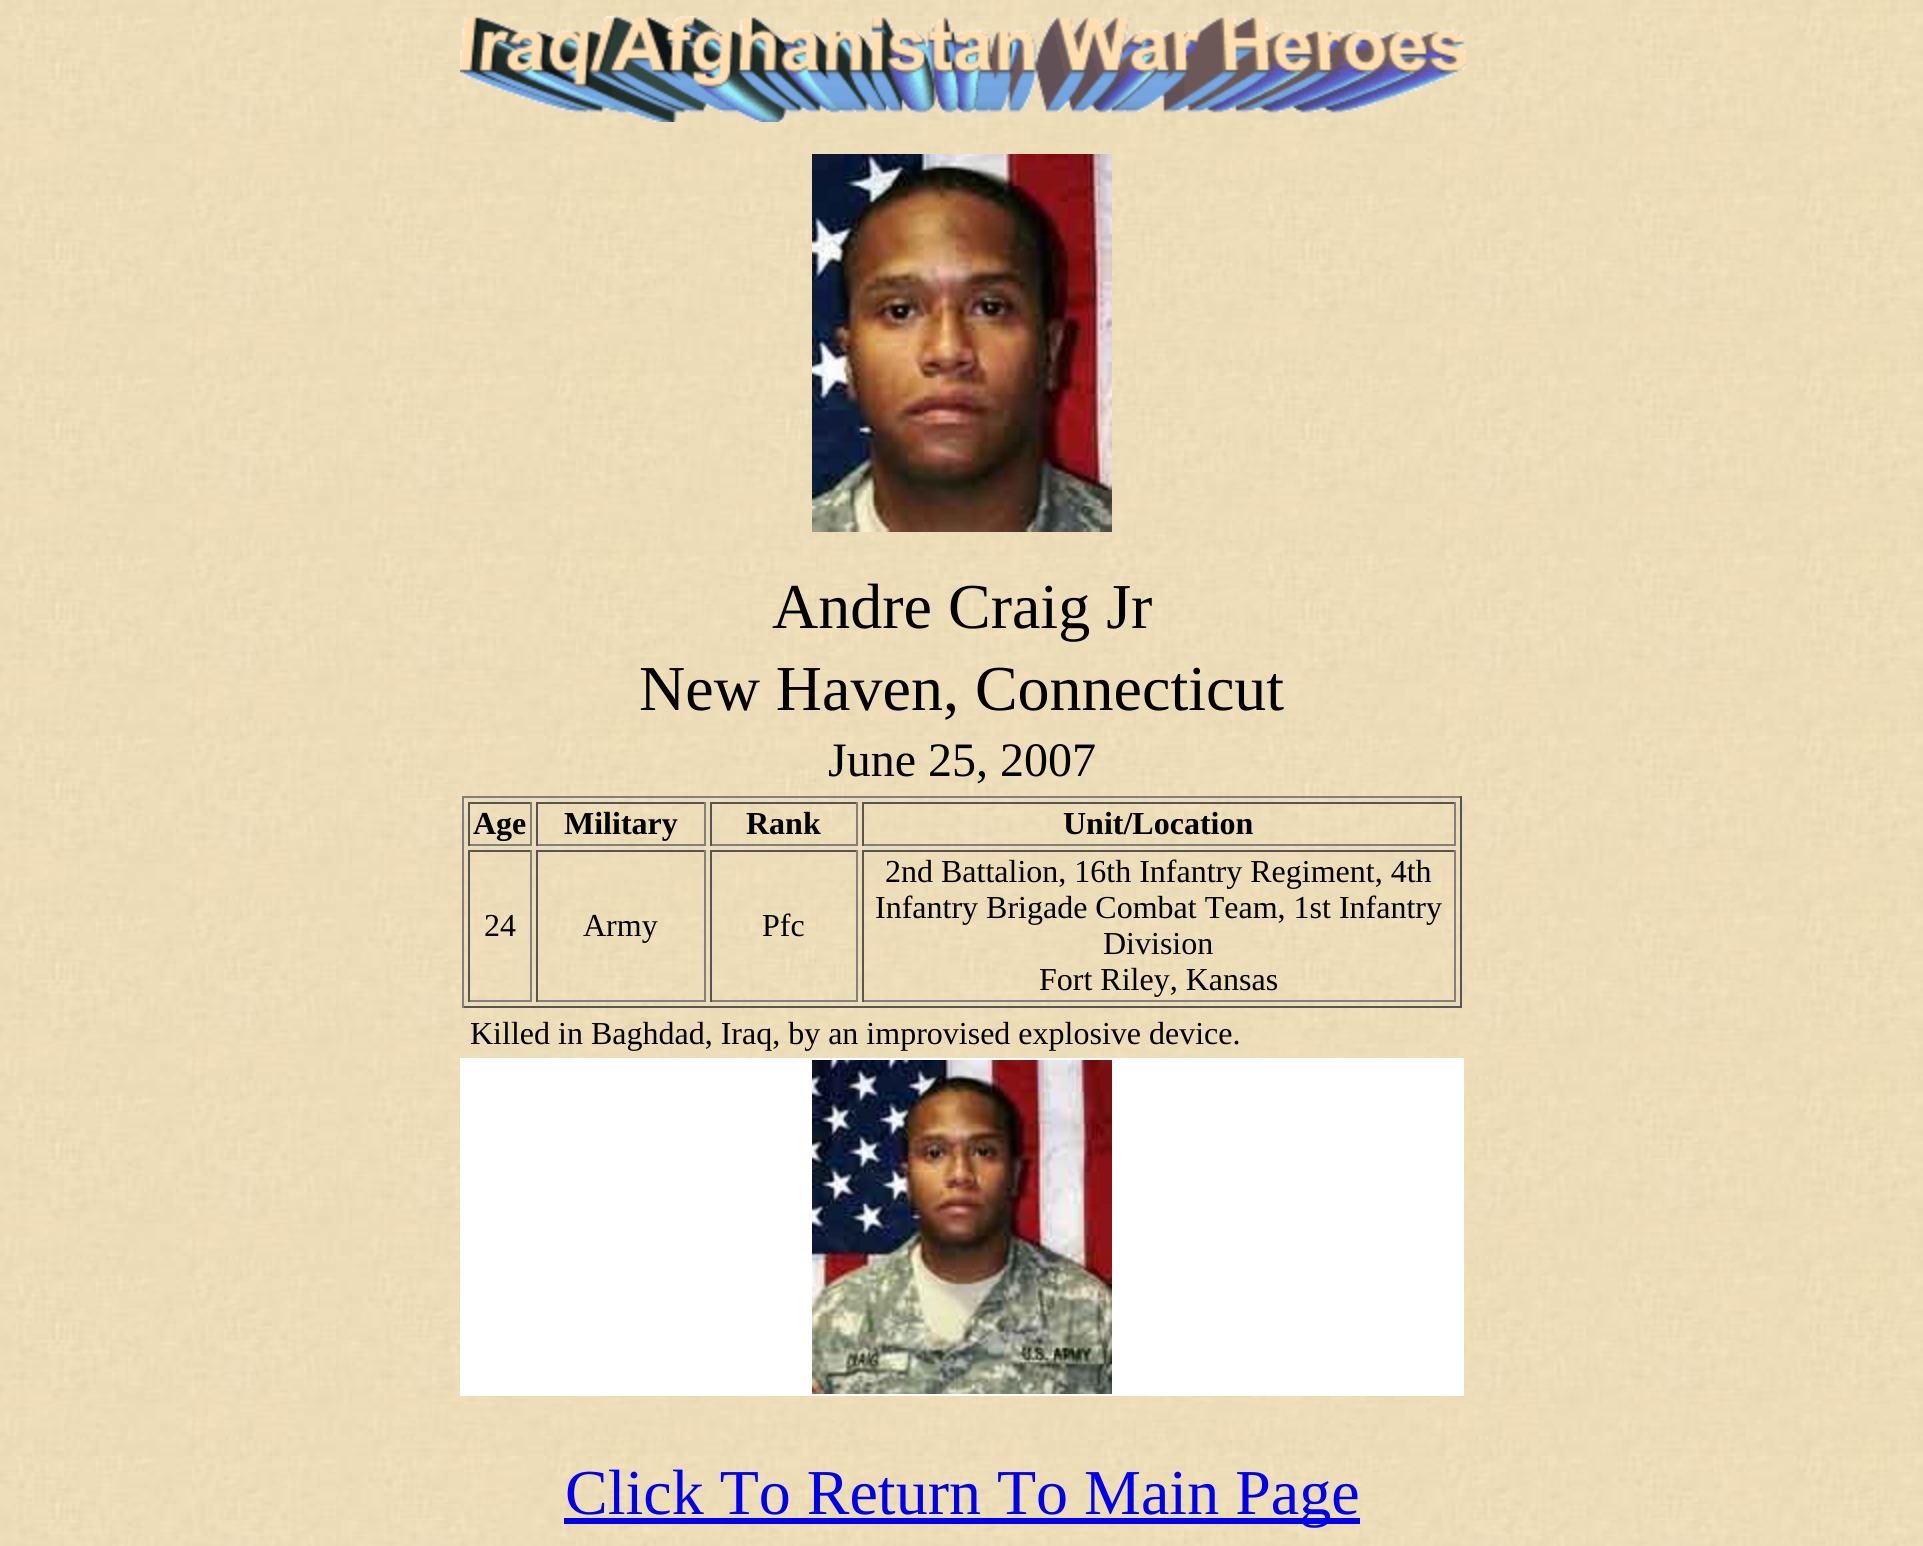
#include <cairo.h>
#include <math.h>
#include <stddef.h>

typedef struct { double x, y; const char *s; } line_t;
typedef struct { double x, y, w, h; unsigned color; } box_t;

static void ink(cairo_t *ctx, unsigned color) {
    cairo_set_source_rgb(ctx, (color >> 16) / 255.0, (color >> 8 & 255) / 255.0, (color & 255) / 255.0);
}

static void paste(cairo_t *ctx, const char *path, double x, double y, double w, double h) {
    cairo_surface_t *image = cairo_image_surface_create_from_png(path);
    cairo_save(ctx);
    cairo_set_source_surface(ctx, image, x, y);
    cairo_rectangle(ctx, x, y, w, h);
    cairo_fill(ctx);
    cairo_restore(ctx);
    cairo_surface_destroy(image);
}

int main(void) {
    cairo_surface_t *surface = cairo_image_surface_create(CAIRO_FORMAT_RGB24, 1923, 1546);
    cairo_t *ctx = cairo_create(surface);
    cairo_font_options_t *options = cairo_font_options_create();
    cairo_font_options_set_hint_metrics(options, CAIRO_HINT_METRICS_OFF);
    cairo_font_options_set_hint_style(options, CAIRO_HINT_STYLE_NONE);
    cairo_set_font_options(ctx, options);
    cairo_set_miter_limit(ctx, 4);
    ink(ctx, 0xFFFFFF);
    cairo_paint(ctx);
    paste(ctx, "media/1.png", 0, 0, 1923, 1546);
    paste(ctx, "media/2.png", 460, 16, 1006, 106);
    paste(ctx, "media/3.png", 812, 154, 300, 378);
    cairo_select_font_face(ctx, "Liberation Serif", CAIRO_FONT_SLANT_NORMAL, CAIRO_FONT_WEIGHT_NORMAL);
    cairo_set_font_size(ctx, 64);
    ink(ctx, 0x000000);
    cairo_move_to(ctx, 772, 628);
    cairo_show_text(ctx, "Andre Craig Jr");
    cairo_move_to(ctx, 639, 710);
    cairo_show_text(ctx, "New Haven, Connecticut");
    cairo_set_font_size(ctx, 48);
    cairo_move_to(ctx, 828, 776);
    cairo_show_text(ctx, "June 25, 2007");
    {
        static const box_t items[] = {
            {462, 796, 1000, 2, 0x808080},
            {1460, 796, 2, 212, 0x555555},
            {462, 1006, 1000, 2, 0x555555},
            {462, 796, 2, 212, 0x808080},
            {468, 802, 64, 2, 0x555555},
            {530, 802, 2, 44, 0x808080},
            {468, 844, 64, 2, 0x808080},
            {468, 802, 2, 44, 0x555555},
        };
        for (size_t i = 0; i < sizeof items / sizeof *items; i++) {
            ink(ctx, items[i].color);
            cairo_rectangle(ctx, items[i].x, items[i].y, items[i].w, items[i].h);
            cairo_fill(ctx);
        }
    }
    cairo_select_font_face(ctx, "Liberation Serif", CAIRO_FONT_SLANT_NORMAL, CAIRO_FONT_WEIGHT_BOLD);
    cairo_set_font_size(ctx, 32);
    ink(ctx, 0x000000);
    cairo_move_to(ctx, 473, 834);
    cairo_show_text(ctx, "Age");
    {
        static const box_t items[] = {
            {536, 802, 170, 2, 0x555555},
            {704, 802, 2, 44, 0x808080},
            {536, 844, 170, 2, 0x808080},
            {536, 802, 2, 44, 0x555555},
        };
        for (size_t i = 0; i < sizeof items / sizeof *items; i++) {
            ink(ctx, items[i].color);
            cairo_rectangle(ctx, items[i].x, items[i].y, items[i].w, items[i].h);
            cairo_fill(ctx);
        }
    }
    ink(ctx, 0x000000);
    cairo_move_to(ctx, 564, 834);
    cairo_show_text(ctx, "Military");
    {
        static const box_t items[] = {
            {710, 802, 148, 2, 0x555555},
            {856, 802, 2, 44, 0x808080},
            {710, 844, 148, 2, 0x808080},
            {710, 802, 2, 44, 0x555555},
        };
        for (size_t i = 0; i < sizeof items / sizeof *items; i++) {
            ink(ctx, items[i].color);
            cairo_rectangle(ctx, items[i].x, items[i].y, items[i].w, items[i].h);
            cairo_fill(ctx);
        }
    }
    ink(ctx, 0x000000);
    cairo_move_to(ctx, 746, 834);
    cairo_show_text(ctx, "Rank");
    {
        static const box_t items[] = {
            {862, 802, 594, 2, 0x555555},
            {1454, 802, 2, 44, 0x808080},
            {862, 844, 594, 2, 0x808080},
            {862, 802, 2, 44, 0x555555},
        };
        for (size_t i = 0; i < sizeof items / sizeof *items; i++) {
            ink(ctx, items[i].color);
            cairo_rectangle(ctx, items[i].x, items[i].y, items[i].w, items[i].h);
            cairo_fill(ctx);
        }
    }
    ink(ctx, 0x000000);
    cairo_move_to(ctx, 1063, 834);
    cairo_show_text(ctx, "Unit/Location");
    {
        static const box_t items[] = {
            {468, 850, 64, 2, 0x555555},
            {530, 850, 2, 152, 0x808080},
            {468, 1000, 64, 2, 0x808080},
            {468, 850, 2, 152, 0x555555},
        };
        for (size_t i = 0; i < sizeof items / sizeof *items; i++) {
            ink(ctx, items[i].color);
            cairo_rectangle(ctx, items[i].x, items[i].y, items[i].w, items[i].h);
            cairo_fill(ctx);
        }
    }
    cairo_select_font_face(ctx, "Liberation Serif", CAIRO_FONT_SLANT_NORMAL, CAIRO_FONT_WEIGHT_NORMAL);
    ink(ctx, 0x000000);
    cairo_move_to(ctx, 484, 936);
    cairo_show_text(ctx, "24");
    {
        static const box_t items[] = {
            {536, 850, 170, 2, 0x555555},
            {704, 850, 2, 152, 0x808080},
            {536, 1000, 170, 2, 0x808080},
            {536, 850, 2, 152, 0x555555},
        };
        for (size_t i = 0; i < sizeof items / sizeof *items; i++) {
            ink(ctx, items[i].color);
            cairo_rectangle(ctx, items[i].x, items[i].y, items[i].w, items[i].h);
            cairo_fill(ctx);
        }
    }
    ink(ctx, 0x000000);
    cairo_move_to(ctx, 583, 936);
    cairo_show_text(ctx, "Army");
    {
        static const box_t items[] = {
            {710, 850, 148, 2, 0x555555},
            {856, 850, 2, 152, 0x808080},
            {710, 1000, 148, 2, 0x808080},
            {710, 850, 2, 152, 0x555555},
        };
        for (size_t i = 0; i < sizeof items / sizeof *items; i++) {
            ink(ctx, items[i].color);
            cairo_rectangle(ctx, items[i].x, items[i].y, items[i].w, items[i].h);
            cairo_fill(ctx);
        }
    }
    ink(ctx, 0x000000);
    cairo_move_to(ctx, 762, 936);
    cairo_show_text(ctx, "Pfc");
    {
        static const box_t items[] = {
            {862, 850, 594, 2, 0x555555},
            {1454, 850, 2, 152, 0x808080},
            {862, 1000, 594, 2, 0x808080},
            {862, 850, 2, 152, 0x555555},
        };
        for (size_t i = 0; i < sizeof items / sizeof *items; i++) {
            ink(ctx, items[i].color);
            cairo_rectangle(ctx, items[i].x, items[i].y, items[i].w, items[i].h);
            cairo_fill(ctx);
        }
    }
    ink(ctx, 0x000000);
    {
        static const line_t items[] = {
            {885, 882, "2nd Battalion, 16th Infantry Regiment, 4th"},
            {875, 918, "Infantry Brigade Combat Team, 1st Infantry"},
            {1103, 954, "Division"},
            {1039, 990, "Fort Riley, Kansas"},
            {470, 1044, "Killed in Baghdad, Iraq, by an improvised explosive device."},
        };
        for (size_t i = 0; i < sizeof items / sizeof *items; i++) {
            cairo_move_to(ctx, items[i].x, items[i].y);
            cairo_show_text(ctx, items[i].s);
        }
    }
    ink(ctx, 0xFFFFFF);
    cairo_rectangle(ctx, 460, 1058, 1004, 338);
    cairo_fill(ctx);
    paste(ctx, "media/4.png", 812, 1060, 300, 334);
    ink(ctx, 0x0000EE);
    cairo_rectangle(ctx, 564, 1518, 796, 6);
    cairo_fill(ctx);
    cairo_set_font_size(ctx, 64);
    cairo_move_to(ctx, 565, 1514);
    cairo_show_text(ctx, "Click To Return To Main Page");
    cairo_surface_write_to_png(surface, "image.png");
    cairo_font_options_destroy(options);
    cairo_destroy(ctx);
    cairo_surface_destroy(surface);
    return 0;
}
